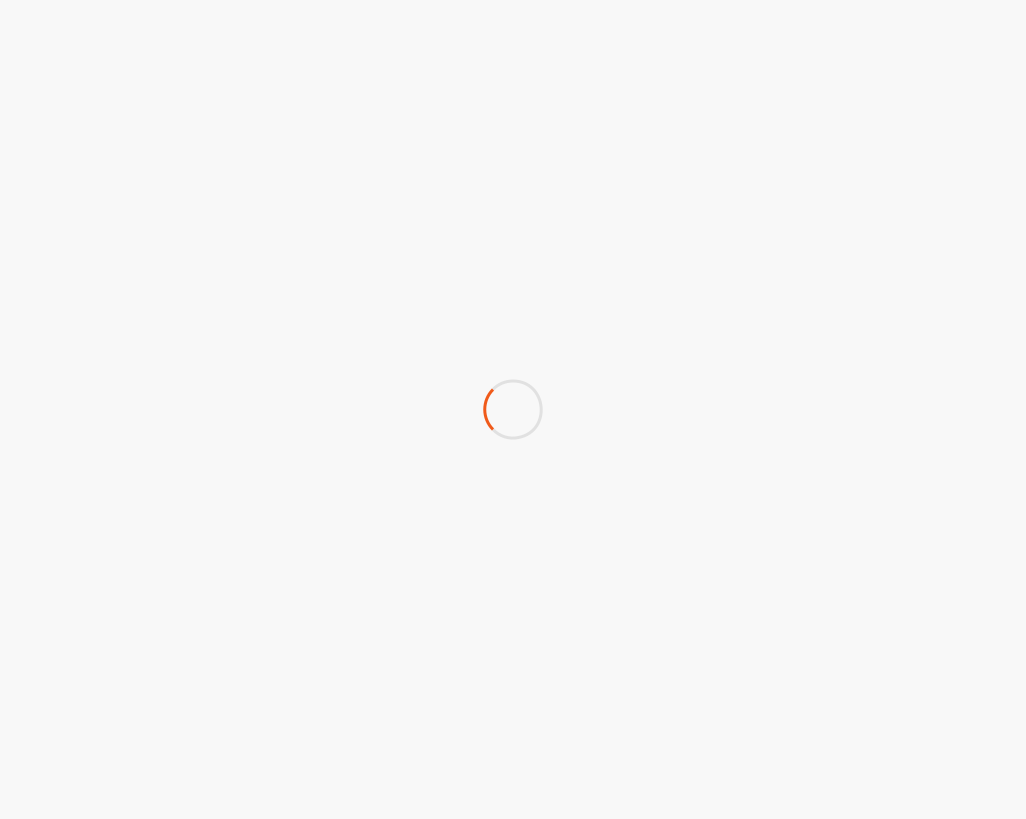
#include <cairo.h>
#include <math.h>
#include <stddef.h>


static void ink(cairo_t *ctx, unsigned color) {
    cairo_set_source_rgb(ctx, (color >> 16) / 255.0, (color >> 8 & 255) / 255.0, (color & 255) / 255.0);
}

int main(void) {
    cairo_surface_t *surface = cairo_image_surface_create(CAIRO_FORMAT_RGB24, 1026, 819);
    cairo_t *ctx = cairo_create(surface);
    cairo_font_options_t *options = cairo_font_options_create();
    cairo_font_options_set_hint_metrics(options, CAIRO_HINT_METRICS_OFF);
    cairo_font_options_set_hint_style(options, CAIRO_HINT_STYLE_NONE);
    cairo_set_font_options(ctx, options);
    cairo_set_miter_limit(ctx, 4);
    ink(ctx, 0xF8F8F8);
    cairo_paint(ctx);
    cairo_new_path(ctx);
    cairo_move_to(ctx, 493, 389.5);
    cairo_curve_to(ctx, 498, 384, 505.5, 381, 513, 381);
    cairo_curve_to(ctx, 547, 381, 552, 431, 518.5, 437.5);
    cairo_curve_to(ctx, 509.5, 439.5, 499.5, 436.5, 493, 429.5);
    ink(ctx, 0xE1E1E1);
    cairo_set_line_width(ctx, 3);
    cairo_stroke(ctx);
    cairo_new_path(ctx);
    cairo_move_to(ctx, 493, 429.5);
    cairo_curve_to(ctx, 482, 418.5, 482, 400.5, 493, 389.5);
    ink(ctx, 0xF05A1A);
    cairo_stroke(ctx);
    cairo_surface_write_to_png(surface, "image.png");
    cairo_font_options_destroy(options);
    cairo_destroy(ctx);
    cairo_surface_destroy(surface);
    return 0;
}
